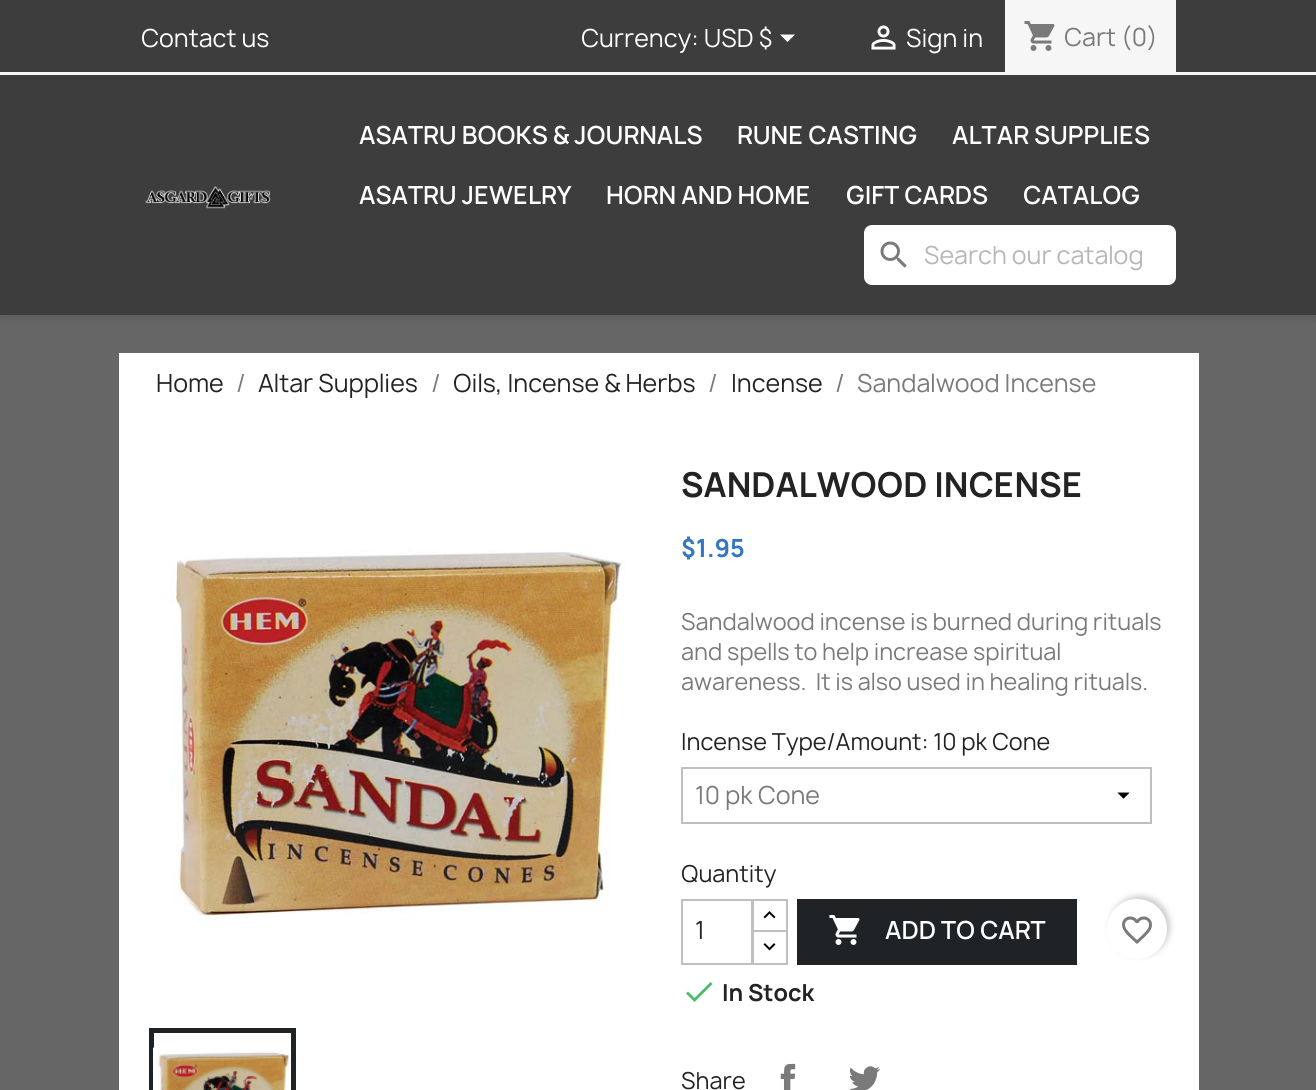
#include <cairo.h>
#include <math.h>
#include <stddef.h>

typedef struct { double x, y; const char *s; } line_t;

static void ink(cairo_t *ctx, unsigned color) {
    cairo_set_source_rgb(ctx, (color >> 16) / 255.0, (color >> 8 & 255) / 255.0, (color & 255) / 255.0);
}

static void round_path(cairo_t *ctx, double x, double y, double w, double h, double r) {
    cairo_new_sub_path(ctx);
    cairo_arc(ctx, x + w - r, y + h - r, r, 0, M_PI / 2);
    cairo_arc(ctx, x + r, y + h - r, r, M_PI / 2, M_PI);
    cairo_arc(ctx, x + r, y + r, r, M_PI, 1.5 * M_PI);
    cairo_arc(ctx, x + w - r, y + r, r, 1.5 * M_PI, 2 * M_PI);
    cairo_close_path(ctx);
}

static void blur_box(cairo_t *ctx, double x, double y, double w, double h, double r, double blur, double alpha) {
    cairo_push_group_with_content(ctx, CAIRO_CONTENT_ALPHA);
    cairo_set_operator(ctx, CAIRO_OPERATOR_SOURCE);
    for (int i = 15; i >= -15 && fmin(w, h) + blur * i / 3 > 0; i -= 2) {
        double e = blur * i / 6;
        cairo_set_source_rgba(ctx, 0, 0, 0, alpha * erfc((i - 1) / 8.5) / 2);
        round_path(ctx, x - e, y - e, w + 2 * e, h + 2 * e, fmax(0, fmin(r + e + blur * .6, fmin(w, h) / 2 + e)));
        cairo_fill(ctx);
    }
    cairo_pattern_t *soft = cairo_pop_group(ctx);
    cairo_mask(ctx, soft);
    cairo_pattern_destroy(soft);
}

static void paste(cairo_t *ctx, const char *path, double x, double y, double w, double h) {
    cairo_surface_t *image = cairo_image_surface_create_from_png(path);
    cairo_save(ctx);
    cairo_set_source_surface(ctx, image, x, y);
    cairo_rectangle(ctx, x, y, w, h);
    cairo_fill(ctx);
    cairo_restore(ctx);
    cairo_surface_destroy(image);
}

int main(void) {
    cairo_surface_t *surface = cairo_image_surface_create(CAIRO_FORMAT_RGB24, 1316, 1090);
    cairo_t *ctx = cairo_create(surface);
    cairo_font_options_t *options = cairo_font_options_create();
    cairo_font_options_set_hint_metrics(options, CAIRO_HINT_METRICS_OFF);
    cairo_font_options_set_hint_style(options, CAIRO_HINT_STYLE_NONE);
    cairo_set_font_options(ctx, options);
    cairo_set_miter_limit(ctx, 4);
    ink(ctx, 0x666666);
    cairo_paint(ctx);
    ink(ctx, 0x000000);
    blur_box(ctx, 0, 3, 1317, 315, 0, 4, 0.11);
    ink(ctx, 0x3D3D3D);
    cairo_rectangle(ctx, 0, 0, 1316, 315);
    cairo_fill(ctx);
    ink(ctx, 0xF6F6F6);
    cairo_rectangle(ctx, 0, 72, 1316, 3);
    cairo_fill(ctx);
    cairo_select_font_face(ctx, "Manrope", CAIRO_FONT_SLANT_NORMAL, CAIRO_FONT_WEIGHT_NORMAL);
    cairo_set_font_size(ctx, 24);
    ink(ctx, 0xFFFFFF);
    cairo_move_to(ctx, 141, 47);
    cairo_show_text(ctx, "Contact us");
    cairo_move_to(ctx, 581, 47);
    cairo_show_text(ctx, "Currency: USD $");
    cairo_new_path(ctx);
    cairo_move_to(ctx, 780, 34.5);
    cairo_line_to(ctx, 795, 34.5);
    cairo_line_to(ctx, 787.5, 42);
    cairo_close_path(ctx);
    cairo_fill(ctx);
    paste(ctx, "media/1.png", 871, 25, 25, 25);
    cairo_move_to(ctx, 906, 47);
    cairo_show_text(ctx, "Sign in");
    ink(ctx, 0xF6F6F6);
    cairo_rectangle(ctx, 1005, 0, 171, 72);
    cairo_fill(ctx);
    paste(ctx, "media/2.png", 1024, 21, 31, 30);
    ink(ctx, 0x7A7A7A);
    cairo_move_to(ctx, 1064, 46);
    cairo_show_text(ctx, "Cart (0)");
    paste(ctx, "media/3.png", 145, 186, 126, 23);
    cairo_select_font_face(ctx, "Manrope SemiBold", CAIRO_FONT_SLANT_NORMAL, CAIRO_FONT_WEIGHT_NORMAL);
    ink(ctx, 0xFFFFFF);
    {
        static const line_t items[] = {
            {359, 144, "ASATRU BOOKS & JOURNALS"},
            {737, 144, "RUNE CASTING"},
            {952, 144, "ALTAR SUPPLIES"},
            {359, 204, "ASATRU JEWELRY"},
            {606, 204, "HORN AND HOME"},
            {846, 204, "GIFT CARDS"},
            {1023, 204, "CATALOG"},
        };
        for (size_t i = 0; i < sizeof items / sizeof *items; i++) {
            cairo_move_to(ctx, items[i].x, items[i].y);
            cairo_show_text(ctx, items[i].s);
        }
    }
    round_path(ctx, 864, 225, 312, 60, 8);
    cairo_fill(ctx);
    paste(ctx, "media/4.png", 880, 241, 27, 27);
    cairo_select_font_face(ctx, "Manrope", CAIRO_FONT_SLANT_NORMAL, CAIRO_FONT_WEIGHT_NORMAL);
    ink(ctx, 0xB7B7B7);
    cairo_move_to(ctx, 924, 264);
    cairo_show_text(ctx, "Search our catalog");
    ink(ctx, 0xFFFFFF);
    cairo_rectangle(ctx, 119, 353, 1080, 737);
    cairo_fill(ctx);
    ink(ctx, 0x232323);
    cairo_move_to(ctx, 156, 392);
    cairo_show_text(ctx, "Home");
    ink(ctx, 0x7A7A7A);
    cairo_move_to(ctx, 236, 392);
    cairo_show_text(ctx, "/");
    ink(ctx, 0x232323);
    cairo_move_to(ctx, 258, 392);
    cairo_show_text(ctx, "Altar Supplies");
    ink(ctx, 0x7A7A7A);
    cairo_move_to(ctx, 431, 392);
    cairo_show_text(ctx, "/");
    ink(ctx, 0x232323);
    cairo_move_to(ctx, 453, 392);
    cairo_show_text(ctx, "Oils, Incense & Herbs");
    ink(ctx, 0x7A7A7A);
    cairo_move_to(ctx, 708, 392);
    cairo_show_text(ctx, "/");
    ink(ctx, 0x232323);
    cairo_move_to(ctx, 731, 392);
    cairo_show_text(ctx, "Incense");
    ink(ctx, 0x7A7A7A);
    cairo_move_to(ctx, 835, 392);
    cairo_show_text(ctx, "/");
    cairo_move_to(ctx, 857, 392);
    cairo_show_text(ctx, "Sandalwood Incense");
    paste(ctx, "media/5.png", 170, 550, 455, 377);
    cairo_rectangle(ctx, 151.5, 1030.5, 142, 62);
    ink(ctx, 0x202326);
    cairo_set_line_width(ctx, 5);
    cairo_stroke(ctx);
    paste(ctx, "media/6.png", 153, 1047, 137, 43);
    cairo_select_font_face(ctx, "Manrope", CAIRO_FONT_SLANT_NORMAL, CAIRO_FONT_WEIGHT_BOLD);
    cairo_set_font_size(ctx, 33);
    ink(ctx, 0x232323);
    cairo_move_to(ctx, 681, 497);
    cairo_show_text(ctx, "SANDALWOOD INCENSE");
    cairo_set_font_size(ctx, 24);
    ink(ctx, 0x3178C0);
    cairo_move_to(ctx, 681, 557);
    cairo_show_text(ctx, "$1.95");
    cairo_select_font_face(ctx, "Manrope", CAIRO_FONT_SLANT_NORMAL, CAIRO_FONT_WEIGHT_NORMAL);
    cairo_set_font_size(ctx, 22.5);
    ink(ctx, 0x7A7A7A);
    {
        static const line_t items[] = {
            {681, 630, "Sandalwood incense is burned during rituals"},
            {681, 660, "and spells to help increase spiritual"},
            {681, 690, "awareness.  It is also used in healing rituals."},
        };
        for (size_t i = 0; i < sizeof items / sizeof *items; i++) {
            cairo_move_to(ctx, items[i].x, items[i].y);
            cairo_show_text(ctx, items[i].s);
        }
    }
    ink(ctx, 0x232323);
    cairo_move_to(ctx, 681, 750);
    cairo_show_text(ctx, "Incense Type/Amount: 10 pk Cone");
    paste(ctx, "media/7.png", 1117, 792, 13, 7);
    cairo_rectangle(ctx, 682, 768, 469, 55);
    ink(ctx, 0xBFBFBF);
    cairo_set_line_width(ctx, 2);
    cairo_stroke(ctx);
    cairo_set_font_size(ctx, 24);
    ink(ctx, 0x7A7A7A);
    cairo_move_to(ctx, 695, 804);
    cairo_show_text(ctx, "10 pk Cone");
    cairo_set_font_size(ctx, 22.5);
    ink(ctx, 0x232323);
    cairo_move_to(ctx, 681, 882);
    cairo_show_text(ctx, "Quantity");
    cairo_rectangle(ctx, 753, 900, 34, 32);
    ink(ctx, 0xBFBFBF);
    cairo_stroke(ctx);
    ink(ctx, 0xFFFFFF);
    cairo_rectangle(ctx, 754, 932, 32, 1);
    cairo_fill(ctx);
    cairo_rectangle(ctx, 753, 931, 34, 33);
    ink(ctx, 0xBFBFBF);
    cairo_stroke(ctx);
    cairo_rectangle(ctx, 682, 900, 70, 64);
    cairo_stroke(ctx);
    cairo_set_font_size(ctx, 24);
    ink(ctx, 0x232323);
    cairo_move_to(ctx, 695, 939);
    cairo_show_text(ctx, "1");
    paste(ctx, "media/8.png", 763, 911, 13, 8);
    paste(ctx, "media/9.png", 763, 943, 13, 8);
    ink(ctx, 0x202326);
    cairo_rectangle(ctx, 797, 899, 280, 66);
    cairo_fill(ctx);
    paste(ctx, "media/10.png", 829, 915, 31, 30);
    cairo_select_font_face(ctx, "Manrope SemiBold", CAIRO_FONT_SLANT_NORMAL, CAIRO_FONT_WEIGHT_NORMAL);
    ink(ctx, 0xFFFFFF);
    cairo_move_to(ctx, 885, 939);
    cairo_show_text(ctx, "ADD TO CART");
    ink(ctx, 0x000000);
    blur_box(ctx, 1110, 896, 60, 60, 30, 3, 0.2);
    ink(ctx, 0xFFFFFF);
    cairo_arc(ctx, 1137, 929, 30, 0, 2 * M_PI);
    cairo_fill(ctx);
    paste(ctx, "media/11.png", 1122, 916, 30, 28);
    ink(ctx, 0x4CBB6C);
    cairo_new_path(ctx);
    cairo_move_to(ctx, 694.5, 998);
    cairo_line_to(ctx, 710.5, 982);
    cairo_line_to(ctx, 712.5, 984);
    cairo_line_to(ctx, 694.5, 1002);
    cairo_line_to(ctx, 686, 993.5);
    cairo_line_to(ctx, 688, 991.5);
    cairo_close_path(ctx);
    cairo_fill(ctx);
    cairo_select_font_face(ctx, "Manrope", CAIRO_FONT_SLANT_NORMAL, CAIRO_FONT_WEIGHT_BOLD);
    cairo_set_font_size(ctx, 22.5);
    ink(ctx, 0x232323);
    cairo_move_to(ctx, 722, 1001);
    cairo_show_text(ctx, "In Stock");
    cairo_select_font_face(ctx, "Manrope", CAIRO_FONT_SLANT_NORMAL, CAIRO_FONT_WEIGHT_NORMAL);
    cairo_move_to(ctx, 681, 1089);
    cairo_show_text(ctx, "Share");
    paste(ctx, "media/12.png", 780, 1063, 16, 27);
    paste(ctx, "media/13.png", 849, 1066, 32, 24);
    cairo_surface_write_to_png(surface, "image.png");
    cairo_font_options_destroy(options);
    cairo_destroy(ctx);
    cairo_surface_destroy(surface);
    return 0;
}
